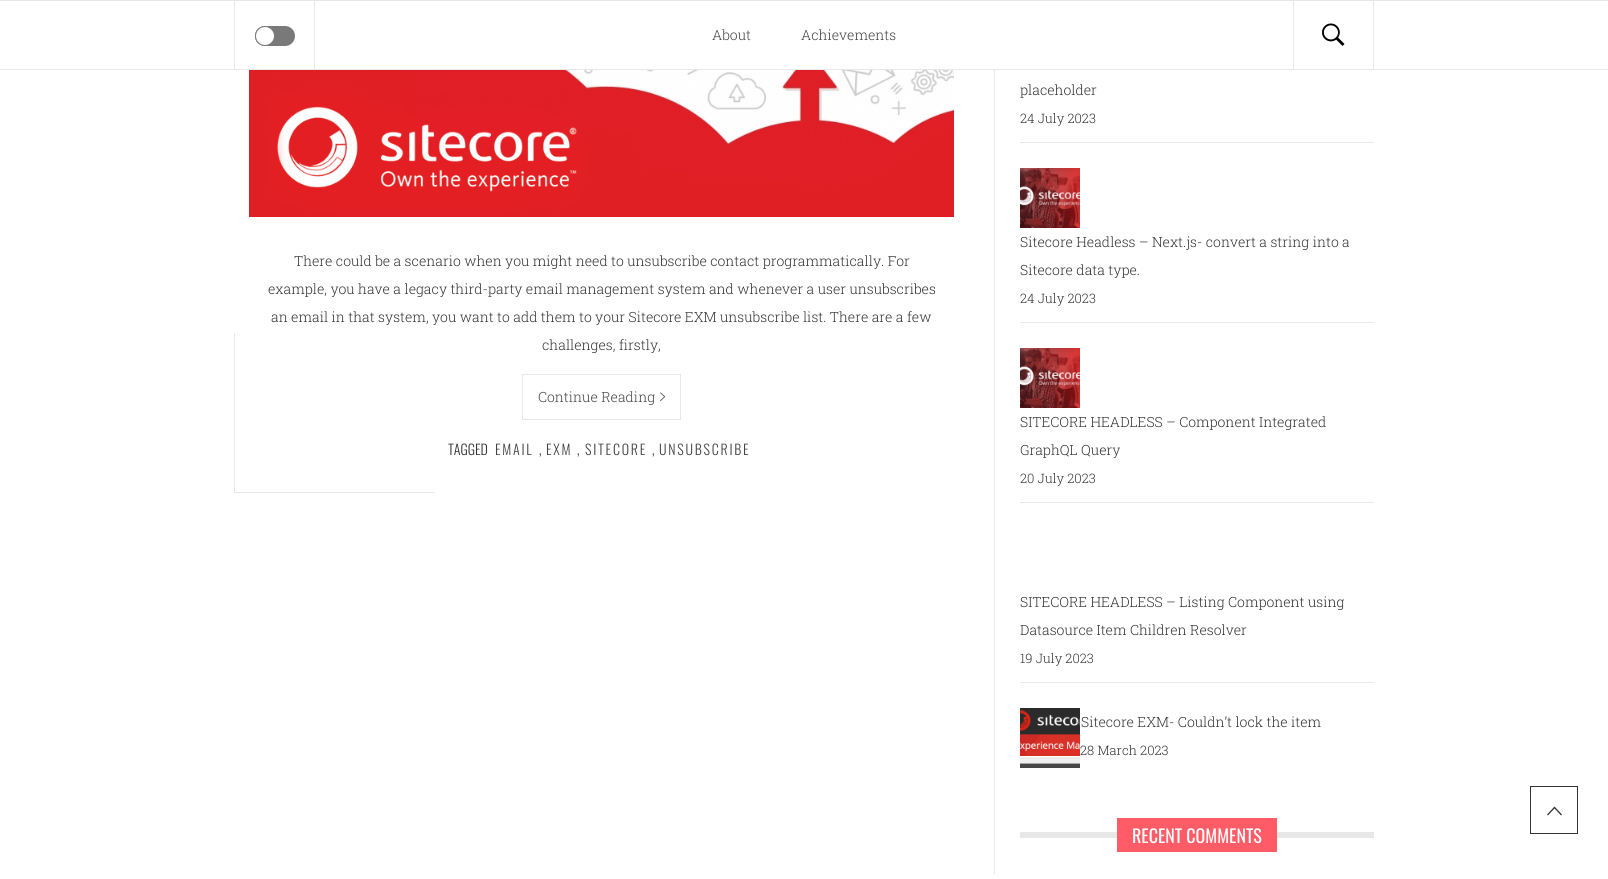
#include <cairo.h>
#include <math.h>
#include <stddef.h>

typedef struct { double x, y; const char *s; } line_t;
typedef struct { double x, y, w, h; unsigned color; } box_t;

static void ink(cairo_t *ctx, unsigned color) {
    cairo_set_source_rgb(ctx, (color >> 16) / 255.0, (color >> 8 & 255) / 255.0, (color & 255) / 255.0);
}

static void write_spaced(cairo_t *ctx, double x, double y, const char *s, double letter, double word) {
    cairo_move_to(ctx, x, y);
    while (*s) {
        char ch[5] = {0};
        int n = 0;
        do ch[n++] = *s++; while ((*s & 0xC0) == 0x80);
        cairo_show_text(ctx, ch);
        cairo_rel_move_to(ctx, letter + word * (*ch == ' '), 0);
    }
}

static void round_path(cairo_t *ctx, double x, double y, double w, double h, double r) {
    cairo_new_sub_path(ctx);
    cairo_arc(ctx, x + w - r, y + h - r, r, 0, M_PI / 2);
    cairo_arc(ctx, x + r, y + h - r, r, M_PI / 2, M_PI);
    cairo_arc(ctx, x + r, y + r, r, M_PI, 1.5 * M_PI);
    cairo_arc(ctx, x + w - r, y + r, r, 1.5 * M_PI, 2 * M_PI);
    cairo_close_path(ctx);
}

static void paste(cairo_t *ctx, const char *path, double x, double y, double w, double h) {
    cairo_surface_t *image = cairo_image_surface_create_from_png(path);
    cairo_save(ctx);
    cairo_set_source_surface(ctx, image, x, y);
    cairo_rectangle(ctx, x, y, w, h);
    cairo_fill(ctx);
    cairo_restore(ctx);
    cairo_surface_destroy(image);
}

int main(void) {
    cairo_surface_t *surface = cairo_image_surface_create(CAIRO_FORMAT_RGB24, 1608, 879);
    cairo_t *ctx = cairo_create(surface);
    cairo_font_options_t *options = cairo_font_options_create();
    cairo_font_options_set_hint_metrics(options, CAIRO_HINT_METRICS_OFF);
    cairo_font_options_set_hint_style(options, CAIRO_HINT_STYLE_NONE);
    cairo_set_font_options(ctx, options);
    cairo_set_miter_limit(ctx, 4);
    ink(ctx, 0xFFFFFF);
    cairo_paint(ctx);
    {
        static const box_t items[] = {
            {0, 0, 1608, 1, 0xE8E8E8},
            {0, 69, 1608, 1, 0xE8E8E8},
            {1373, 1, 1, 68, 0xE8E8E8},
            {234, 1, 1, 68, 0xE8E8E8},
            {314, 1, 1, 68, 0xE8E8E8},
        };
        for (size_t i = 0; i < sizeof items / sizeof *items; i++) {
            ink(ctx, items[i].color);
            cairo_rectangle(ctx, items[i].x, items[i].y, items[i].w, items[i].h);
            cairo_fill(ctx);
        }
    }
    ink(ctx, 0x797979);
    round_path(ctx, 255, 26, 40, 20, 10);
    cairo_fill(ctx);
    ink(ctx, 0xFFFFFF);
    cairo_arc(ctx, 265, 36, 9.5, 0, 2 * M_PI);
    cairo_fill_preserve(ctx);
    ink(ctx, 0x797979);
    cairo_set_line_width(ctx, 1);
    cairo_stroke(ctx);
    cairo_select_font_face(ctx, "Roboto Slab Light", CAIRO_FONT_SLANT_NORMAL, CAIRO_FONT_WEIGHT_NORMAL);
    cairo_set_font_size(ctx, 14);
    ink(ctx, 0x434343);
    cairo_move_to(ctx, 712, 40);
    cairo_show_text(ctx, "About");
    cairo_move_to(ctx, 801, 40);
    cairo_show_text(ctx, "Achievements");
    ink(ctx, 0xE8E8E8);
    cairo_rectangle(ctx, 1293, 1, 1, 68);
    cairo_fill(ctx);
    paste(ctx, "media/1.png", 1322, 23, 23, 23);
    cairo_rectangle(ctx, 234, 492, 200, 1);
    cairo_fill(ctx);
    cairo_rectangle(ctx, 234, 333, 1, 160);
    cairo_fill(ctx);
    paste(ctx, "media/2.png", 249, 70, 705, 147);
    ink(ctx, 0x333333);
    {
        static const line_t items[] = {
            {294, 266, "There could be a scenario when you might need to unsubscribe contact programmatically. For"},
            {268, 294, "example, you have a legacy third-party email management system and whenever a user unsubscribes"},
            {271, 322, "an email in that system, you want to add them to your Sitecore EXM unsubscribe list. There are a few"},
            {542, 350, "challenges, firstly,"},
        };
        for (size_t i = 0; i < sizeof items / sizeof *items; i++) {
            cairo_move_to(ctx, items[i].x, items[i].y);
            cairo_show_text(ctx, items[i].s);
        }
    }
    cairo_rectangle(ctx, 522.5, 374.5, 158, 45);
    ink(ctx, 0xE8E8E8);
    cairo_stroke(ctx);
    ink(ctx, 0x434343);
    cairo_move_to(ctx, 538, 402);
    cairo_show_text(ctx, "Continue Reading");
    paste(ctx, "media/3.png", 660, 392, 6, 9);
    cairo_select_font_face(ctx, "Oswald Light", CAIRO_FONT_SLANT_NORMAL, CAIRO_FONT_WEIGHT_NORMAL);
    ink(ctx, 0x333333);
    cairo_move_to(ctx, 448, 455);
    cairo_show_text(ctx, "TAGGED");
    ink(ctx, 0x434343);
    write_spaced(ctx, 495, 455, "EMAIL", 1.75, 0);
    ink(ctx, 0x333333);
    cairo_move_to(ctx, 539, 455);
    cairo_show_text(ctx, ",");
    ink(ctx, 0x434343);
    write_spaced(ctx, 546, 455, "EXM", 1.75, 0);
    ink(ctx, 0x333333);
    cairo_move_to(ctx, 577, 455);
    cairo_show_text(ctx, ",");
    ink(ctx, 0x434343);
    write_spaced(ctx, 585, 455, "SITECORE", 1.75, 0);
    ink(ctx, 0x333333);
    cairo_move_to(ctx, 652, 455);
    cairo_show_text(ctx, ",");
    ink(ctx, 0x434343);
    write_spaced(ctx, 659, 455, "UNSUBSCRIBE", 1.75, 0);
    ink(ctx, 0xE8E8E8);
    cairo_rectangle(ctx, 994, 70, 1, 804);
    cairo_fill(ctx);
    cairo_rectangle(ctx, 1020, 142, 354, 1);
    cairo_fill(ctx);
    cairo_select_font_face(ctx, "Roboto Slab Light", CAIRO_FONT_SLANT_NORMAL, CAIRO_FONT_WEIGHT_NORMAL);
    ink(ctx, 0x333333);
    cairo_move_to(ctx, 1020, 95);
    cairo_show_text(ctx, "placeholder");
    cairo_set_font_size(ctx, 13);
    cairo_move_to(ctx, 1020, 123);
    cairo_show_text(ctx, "24 July 2023");
    ink(ctx, 0xE8E8E8);
    cairo_rectangle(ctx, 1020, 322, 354, 1);
    cairo_fill(ctx);
    paste(ctx, "media/4.png", 1020, 168, 60, 60);
    cairo_set_font_size(ctx, 14);
    ink(ctx, 0x333333);
    cairo_move_to(ctx, 1020, 247);
    cairo_show_text(ctx, "Sitecore Headless – Next.js- convert a string into a");
    cairo_move_to(ctx, 1020, 275);
    cairo_show_text(ctx, "Sitecore data type.");
    cairo_set_font_size(ctx, 13);
    cairo_move_to(ctx, 1020, 303);
    cairo_show_text(ctx, "24 July 2023");
    ink(ctx, 0xE8E8E8);
    cairo_rectangle(ctx, 1020, 502, 354, 1);
    cairo_fill(ctx);
    paste(ctx, "media/4.png", 1020, 348, 60, 60);
    cairo_set_font_size(ctx, 14);
    ink(ctx, 0x333333);
    cairo_move_to(ctx, 1020, 427);
    cairo_show_text(ctx, "SITECORE HEADLESS – Component Integrated");
    cairo_move_to(ctx, 1020, 455);
    cairo_show_text(ctx, "GraphQL Query");
    cairo_set_font_size(ctx, 13);
    cairo_move_to(ctx, 1020, 483);
    cairo_show_text(ctx, "20 July 2023");
    ink(ctx, 0xE8E8E8);
    cairo_rectangle(ctx, 1020, 682, 354, 1);
    cairo_fill(ctx);
    cairo_set_font_size(ctx, 14);
    ink(ctx, 0x333333);
    cairo_move_to(ctx, 1020, 607);
    cairo_show_text(ctx, "SITECORE HEADLESS – Listing Component using");
    cairo_move_to(ctx, 1020, 635);
    cairo_show_text(ctx, "Datasource Item Children Resolver");
    cairo_set_font_size(ctx, 13);
    cairo_move_to(ctx, 1020, 663);
    cairo_show_text(ctx, "19 July 2023");
    paste(ctx, "media/5.png", 1020, 708, 60, 60);
    cairo_set_font_size(ctx, 14);
    ink(ctx, 0x929292);
    cairo_move_to(ctx, 1075, 727);
    cairo_show_text(ctx, "-");
    ink(ctx, 0x333333);
    cairo_move_to(ctx, 1081, 727);
    cairo_show_text(ctx, "Sitecore EXM- Couldn’t lock the item");
    cairo_set_font_size(ctx, 13);
    cairo_move_to(ctx, 1080, 755);
    cairo_show_text(ctx, "28 March 2023");
    ink(ctx, 0xE8E8E8);
    cairo_rectangle(ctx, 1020, 832, 354, 6);
    cairo_fill(ctx);
    ink(ctx, 0xFF5C67);
    cairo_rectangle(ctx, 1117, 818, 160, 34);
    cairo_fill(ctx);
    cairo_select_font_face(ctx, "Oswald", CAIRO_FONT_SLANT_NORMAL, CAIRO_FONT_WEIGHT_NORMAL);
    cairo_set_font_size(ctx, 18);
    ink(ctx, 0xFFFFFF);
    cairo_move_to(ctx, 1132, 843);
    cairo_show_text(ctx, "RECENT COMMENTS");
    cairo_rectangle(ctx, 1530.5, 786.5, 47, 47);
    ink(ctx, 0x333333);
    cairo_stroke(ctx);
    paste(ctx, "media/6.png", 1547, 806, 15, 10);
    cairo_surface_write_to_png(surface, "image.png");
    cairo_font_options_destroy(options);
    cairo_destroy(ctx);
    cairo_surface_destroy(surface);
    return 0;
}
